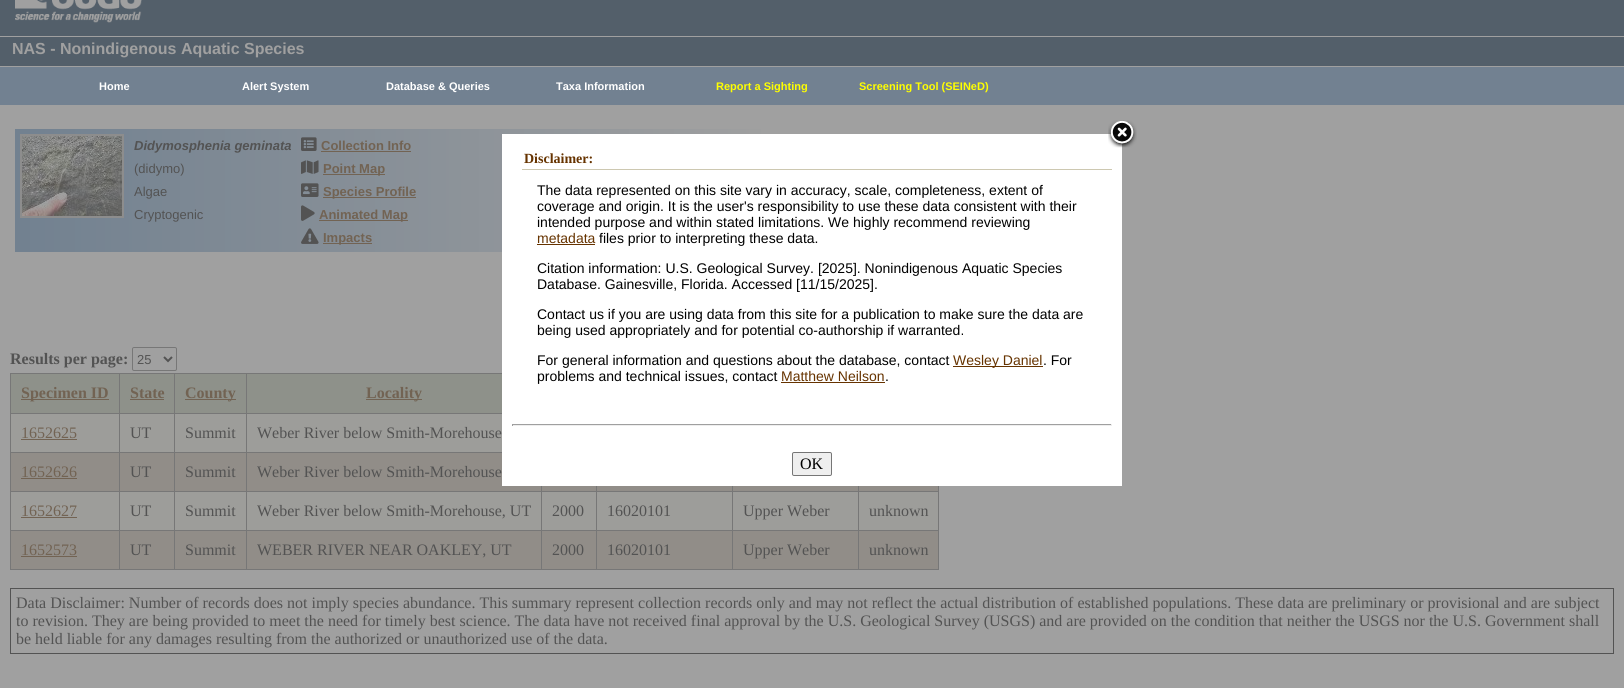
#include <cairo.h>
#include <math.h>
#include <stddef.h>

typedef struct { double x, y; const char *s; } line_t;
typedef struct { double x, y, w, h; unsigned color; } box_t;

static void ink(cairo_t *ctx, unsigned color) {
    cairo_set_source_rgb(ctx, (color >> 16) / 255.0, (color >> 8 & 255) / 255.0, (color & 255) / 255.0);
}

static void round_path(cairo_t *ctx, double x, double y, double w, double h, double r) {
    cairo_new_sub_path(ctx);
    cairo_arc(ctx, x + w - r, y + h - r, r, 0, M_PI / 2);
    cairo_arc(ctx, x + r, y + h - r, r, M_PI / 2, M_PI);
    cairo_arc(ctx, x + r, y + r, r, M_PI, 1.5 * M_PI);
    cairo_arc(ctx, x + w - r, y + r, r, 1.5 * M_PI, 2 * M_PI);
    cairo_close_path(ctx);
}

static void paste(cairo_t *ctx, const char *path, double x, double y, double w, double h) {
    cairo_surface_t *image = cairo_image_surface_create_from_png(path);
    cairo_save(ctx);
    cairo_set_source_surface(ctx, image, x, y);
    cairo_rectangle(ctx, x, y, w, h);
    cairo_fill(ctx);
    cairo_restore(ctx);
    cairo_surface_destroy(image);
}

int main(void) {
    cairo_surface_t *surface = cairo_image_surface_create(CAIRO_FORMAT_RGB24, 1624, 688);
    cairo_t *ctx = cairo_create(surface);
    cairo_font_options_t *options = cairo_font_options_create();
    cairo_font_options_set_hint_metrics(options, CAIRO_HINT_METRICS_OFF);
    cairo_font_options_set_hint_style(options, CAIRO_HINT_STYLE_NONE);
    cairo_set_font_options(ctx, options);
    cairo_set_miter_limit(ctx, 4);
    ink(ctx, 0xA0A0A0);
    cairo_paint(ctx);
    ink(ctx, 0x535F6A);
    cairo_rectangle(ctx, 0, 0, 1624, 36);
    cairo_fill(ctx);
    paste(ctx, "media/1.png", 15, 0, 127, 23);
    cairo_rectangle(ctx, 0, 37, 1624, 29);
    cairo_fill(ctx);
    cairo_select_font_face(ctx, "Liberation Sans", CAIRO_FONT_SLANT_NORMAL, CAIRO_FONT_WEIGHT_BOLD);
    cairo_set_font_size(ctx, 16);
    ink(ctx, 0xA0A0A0);
    cairo_move_to(ctx, 12, 54);
    cairo_show_text(ctx, "NAS - Nonindigenous Aquatic Species");
    ink(ctx, 0x728191);
    cairo_rectangle(ctx, 0, 67, 1624, 38);
    cairo_fill(ctx);
    cairo_set_font_size(ctx, 11);
    ink(ctx, 0xFFFFFF);
    {
        static const line_t items[] = {
            {99, 90, "Home"},
            {242, 90, "Alert System"},
            {386, 90, "Database & Queries"},
            {556, 90, "Taxa Information"},
        };
        for (size_t i = 0; i < sizeof items / sizeof *items; i++) {
            cairo_move_to(ctx, items[i].x, items[i].y);
            cairo_show_text(ctx, items[i].s);
        }
    }
    ink(ctx, 0xFFFF00);
    cairo_move_to(ctx, 716, 90);
    cairo_show_text(ctx, "Report a Sighting");
    cairo_move_to(ctx, 859, 90);
    cairo_show_text(ctx, "Screening Tool (SEINeD)");
    paste(ctx, "media/2.png", 15, 129, 746, 123);
    cairo_rectangle(ctx, 21, 135, 102, 82);
    ink(ctx, 0x8D8D8D);
    cairo_stroke(ctx);
    paste(ctx, "media/3.png", 22, 136, 100, 80);
    cairo_select_font_face(ctx, "Liberation Sans", CAIRO_FONT_SLANT_ITALIC, CAIRO_FONT_WEIGHT_BOLD);
    cairo_set_font_size(ctx, 13);
    ink(ctx, 0x535353);
    cairo_move_to(ctx, 134, 150);
    cairo_show_text(ctx, "Didymosphenia geminata");
    cairo_select_font_face(ctx, "Liberation Sans", CAIRO_FONT_SLANT_NORMAL, CAIRO_FONT_WEIGHT_NORMAL);
    {
        static const line_t items[] = {
            {134, 173, "(didymo)"},
            {134, 196, "Algae"},
            {134, 219, "Cryptogenic"},
        };
        for (size_t i = 0; i < sizeof items / sizeof *items; i++) {
            cairo_move_to(ctx, items[i].x, items[i].y);
            cairo_show_text(ctx, items[i].s);
        }
    }
    paste(ctx, "media/4.png", 301, 137, 16, 14);
    cairo_select_font_face(ctx, "Liberation Sans", CAIRO_FONT_SLANT_NORMAL, CAIRO_FONT_WEIGHT_BOLD);
    ink(ctx, 0x726353);
    cairo_move_to(ctx, 321, 150);
    cairo_show_text(ctx, "Collection Info");
    cairo_rectangle(ctx, 321, 151, 90, 1);
    cairo_fill(ctx);
    paste(ctx, "media/5.png", 301, 160, 18, 14);
    cairo_rectangle(ctx, 323, 174, 62, 1);
    cairo_fill(ctx);
    cairo_move_to(ctx, 323, 173);
    cairo_show_text(ctx, "Point Map");
    paste(ctx, "media/6.png", 301, 183, 18, 14);
    cairo_rectangle(ctx, 323, 197, 93, 1);
    cairo_fill(ctx);
    cairo_move_to(ctx, 323, 196);
    cairo_show_text(ctx, "Species Profile");
    paste(ctx, "media/7.png", 301, 205, 14, 16);
    cairo_rectangle(ctx, 319, 220, 89, 1);
    cairo_fill(ctx);
    cairo_move_to(ctx, 319, 219);
    cairo_show_text(ctx, "Animated Map");
    paste(ctx, "media/8.png", 301, 228, 18, 16);
    cairo_rectangle(ctx, 323, 243, 49, 1);
    cairo_fill(ctx);
    cairo_move_to(ctx, 323, 242);
    cairo_show_text(ctx, "Impacts");
    cairo_select_font_face(ctx, "Liberation Serif", CAIRO_FONT_SLANT_NORMAL, CAIRO_FONT_WEIGHT_BOLD);
    cairo_set_font_size(ctx, 16);
    ink(ctx, 0x535353);
    cairo_move_to(ctx, 10, 364);
    cairo_show_text(ctx, "Results per page:");
    round_path(ctx, 132.5, 347.5, 44, 23, 1.5);
    ink(ctx, 0x777777);
    cairo_set_line_width(ctx, 1);
    cairo_stroke(ctx);
    cairo_new_path(ctx);
    cairo_move_to(ctx, 164, 357);
    cairo_line_to(ctx, 168, 361);
    cairo_line_to(ctx, 172, 357);
    ink(ctx, 0x535353);
    cairo_set_line_width(ctx, 2);
    cairo_stroke(ctx);
    cairo_select_font_face(ctx, "Liberation Sans", CAIRO_FONT_SLANT_NORMAL, CAIRO_FONT_WEIGHT_NORMAL);
    cairo_set_font_size(ctx, 13);
    cairo_move_to(ctx, 137, 364);
    cairo_show_text(ctx, "25");
    {
        static const box_t items[] = {
            {11, 414, 927, 116, 0x9D9D9A},
            {10, 373, 492, 1, 0x777777},
            {938, 486, 1, 84, 0x777777},
            {10, 569, 929, 1, 0x777777},
            {10, 373, 1, 197, 0x777777},
            {11, 374, 491, 39, 0x8E918A},
            {21, 399, 88, 1, 0x726353},
        };
        for (size_t i = 0; i < sizeof items / sizeof *items; i++) {
            ink(ctx, items[i].color);
            cairo_rectangle(ctx, items[i].x, items[i].y, items[i].w, items[i].h);
            cairo_fill(ctx);
        }
    }
    cairo_select_font_face(ctx, "Liberation Serif", CAIRO_FONT_SLANT_NORMAL, CAIRO_FONT_WEIGHT_BOLD);
    cairo_set_font_size(ctx, 16);
    cairo_move_to(ctx, 21, 398);
    cairo_show_text(ctx, "Specimen ID");
    {
        static const box_t items[] = {
            {246, 413, 256, 1, 0x777777},
            {246, 452, 256, 1, 0x777777},
            {11, 453, 927, 38, 0x918D88},
            {858, 491, 81, 1, 0x777777},
            {858, 530, 81, 1, 0x777777},
            {11, 531, 927, 38, 0x918D88},
            {858, 530, 1, 40, 0x777777},
            {732, 530, 127, 1, 0x777777},
            {858, 491, 1, 40, 0x777777},
            {732, 491, 127, 1, 0x777777},
            {732, 530, 1, 40, 0x777777},
            {596, 530, 137, 1, 0x777777},
            {732, 491, 1, 40, 0x777777},
            {596, 491, 137, 1, 0x777777},
            {596, 530, 1, 40, 0x777777},
            {541, 530, 56, 1, 0x777777},
            {596, 491, 1, 40, 0x777777},
            {541, 491, 56, 1, 0x777777},
            {541, 530, 1, 40, 0x777777},
            {246, 530, 296, 1, 0x777777},
            {541, 491, 1, 40, 0x777777},
            {246, 491, 296, 1, 0x777777},
            {246, 530, 1, 40, 0x777777},
            {174, 530, 73, 1, 0x777777},
            {246, 491, 1, 40, 0x777777},
            {174, 491, 73, 1, 0x777777},
            {246, 452, 1, 40, 0x777777},
            {174, 452, 73, 1, 0x777777},
            {246, 413, 1, 40, 0x777777},
            {174, 413, 73, 1, 0x777777},
            {174, 530, 1, 40, 0x777777},
            {119, 530, 56, 1, 0x777777},
            {174, 491, 1, 40, 0x777777},
            {119, 491, 56, 1, 0x777777},
            {174, 452, 1, 40, 0x777777},
            {119, 452, 56, 1, 0x777777},
            {174, 413, 1, 40, 0x777777},
            {119, 413, 56, 1, 0x777777},
            {119, 530, 1, 40, 0x777777},
            {10, 530, 110, 1, 0x777777},
            {119, 491, 1, 40, 0x777777},
            {10, 491, 110, 1, 0x777777},
            {119, 452, 1, 40, 0x777777},
            {10, 452, 110, 1, 0x777777},
            {119, 413, 1, 40, 0x777777},
            {10, 413, 110, 1, 0x777777},
            {119, 373, 1, 41, 0x777777},
        };
        for (size_t i = 0; i < sizeof items / sizeof *items; i++) {
            ink(ctx, items[i].color);
            cairo_rectangle(ctx, items[i].x, items[i].y, items[i].w, items[i].h);
            cairo_fill(ctx);
        }
    }
    ink(ctx, 0x726353);
    cairo_move_to(ctx, 130, 398);
    cairo_show_text(ctx, "State");
    {
        static const box_t items[] = {
            {130, 399, 34, 1, 0x726353},
            {174, 373, 1, 41, 0x777777},
            {185, 399, 51, 1, 0x726353},
        };
        for (size_t i = 0; i < sizeof items / sizeof *items; i++) {
            ink(ctx, items[i].color);
            cairo_rectangle(ctx, items[i].x, items[i].y, items[i].w, items[i].h);
            cairo_fill(ctx);
        }
    }
    cairo_move_to(ctx, 185, 398);
    cairo_show_text(ctx, "County");
    ink(ctx, 0x777777);
    cairo_rectangle(ctx, 246, 373, 1, 41);
    cairo_fill(ctx);
    ink(ctx, 0x726353);
    cairo_rectangle(ctx, 366, 399, 56, 1);
    cairo_fill(ctx);
    cairo_move_to(ctx, 366, 398);
    cairo_show_text(ctx, "Locality");
    cairo_select_font_face(ctx, "Liberation Serif", CAIRO_FONT_SLANT_NORMAL, CAIRO_FONT_WEIGHT_NORMAL);
    cairo_move_to(ctx, 21, 438);
    cairo_show_text(ctx, "1652625");
    cairo_rectangle(ctx, 21, 439, 56, 1);
    cairo_fill(ctx);
    ink(ctx, 0x535353);
    {
        static const line_t items[] = {
            {130, 438, "UT"},
            {185, 438, "Summit"},
            {257, 438, "Weber River below Smith-Morehouse"},
        };
        for (size_t i = 0; i < sizeof items / sizeof *items; i++) {
            cairo_move_to(ctx, items[i].x, items[i].y);
            cairo_show_text(ctx, items[i].s);
        }
    }
    ink(ctx, 0x726353);
    cairo_move_to(ctx, 21, 477);
    cairo_show_text(ctx, "1652626");
    cairo_rectangle(ctx, 21, 478, 56, 1);
    cairo_fill(ctx);
    ink(ctx, 0x535353);
    {
        static const line_t items[] = {
            {130, 477, "UT"},
            {185, 477, "Summit"},
            {257, 477, "Weber River below Smith-Morehouse"},
        };
        for (size_t i = 0; i < sizeof items / sizeof *items; i++) {
            cairo_move_to(ctx, items[i].x, items[i].y);
            cairo_show_text(ctx, items[i].s);
        }
    }
    {
        static const box_t items[] = {
            {541, 486, 1, 6, 0x777777},
            {596, 486, 1, 6, 0x777777},
            {732, 486, 1, 6, 0x777777},
            {858, 486, 1, 6, 0x777777},
        };
        for (size_t i = 0; i < sizeof items / sizeof *items; i++) {
            ink(ctx, items[i].color);
            cairo_rectangle(ctx, items[i].x, items[i].y, items[i].w, items[i].h);
            cairo_fill(ctx);
        }
    }
    ink(ctx, 0x726353);
    cairo_move_to(ctx, 21, 516);
    cairo_show_text(ctx, "1652627");
    cairo_rectangle(ctx, 21, 517, 56, 1);
    cairo_fill(ctx);
    ink(ctx, 0x535353);
    {
        static const line_t items[] = {
            {130, 516, "UT"},
            {185, 516, "Summit"},
            {257, 516, "Weber River below Smith-Morehouse, UT"},
            {552, 516, "2000"},
            {607, 516, "16020101"},
            {743, 516, "Upper Weber"},
            {869, 516, "unknown"},
        };
        for (size_t i = 0; i < sizeof items / sizeof *items; i++) {
            cairo_move_to(ctx, items[i].x, items[i].y);
            cairo_show_text(ctx, items[i].s);
        }
    }
    ink(ctx, 0x726353);
    cairo_move_to(ctx, 21, 555);
    cairo_show_text(ctx, "1652573");
    cairo_rectangle(ctx, 21, 556, 56, 1);
    cairo_fill(ctx);
    ink(ctx, 0x535353);
    {
        static const line_t items[] = {
            {130, 555, "UT"},
            {185, 555, "Summit"},
            {257, 555, "WEBER RIVER NEAR OAKLEY, UT"},
            {552, 555, "2000"},
            {607, 555, "16020101"},
            {743, 555, "Upper Weber"},
            {869, 555, "unknown"},
        };
        for (size_t i = 0; i < sizeof items / sizeof *items; i++) {
            cairo_move_to(ctx, items[i].x, items[i].y);
            cairo_show_text(ctx, items[i].s);
        }
    }
    cairo_rectangle(ctx, 10.5, 588.5, 1603, 65);
    cairo_set_line_width(ctx, 1);
    cairo_stroke(ctx);
    {
        static const line_t items[] = {
            {16, 608, "Data Disclaimer: Number of records does not imply species abundance. This summary represent collection records only and may not reflect the actual distribution of established populations. These data are preliminary or provisional and are subject"},
            {16, 626, "to revision. They are being provided to meet the need for timely best science. The data have not received final approval by the U.S. Geological Survey (USGS) and are provided on the condition that neither the USGS nor the U.S. Government shall"},
            {16, 644, "be held liable for any damages resulting from the authorized or unauthorized use of the data."},
        };
        for (size_t i = 0; i < sizeof items / sizeof *items; i++) {
            cairo_move_to(ctx, items[i].x, items[i].y);
            cairo_show_text(ctx, items[i].s);
        }
    }
    ink(ctx, 0xFFFFFF);
    cairo_rectangle(ctx, 502, 134, 620, 352);
    cairo_fill(ctx);
    paste(ctx, "media/9.png", 1108, 120, 29, 28);
    ink(ctx, 0xCDC8B1);
    cairo_rectangle(ctx, 522, 169, 590, 1);
    cairo_fill(ctx);
    cairo_select_font_face(ctx, "Liberation Serif", CAIRO_FONT_SLANT_NORMAL, CAIRO_FONT_WEIGHT_BOLD);
    cairo_set_font_size(ctx, 14);
    ink(ctx, 0x663300);
    cairo_move_to(ctx, 524, 163);
    cairo_show_text(ctx, "Disclaimer:");
    cairo_select_font_face(ctx, "Liberation Sans", CAIRO_FONT_SLANT_NORMAL, CAIRO_FONT_WEIGHT_NORMAL);
    ink(ctx, 0x000000);
    {
        static const line_t items[] = {
            {537, 195, "The data represented on this site vary in accuracy, scale, completeness, extent of"},
            {537, 211, "coverage and origin. It is the user's responsibility to use these data consistent with their"},
            {537, 227, "intended purpose and within stated limitations. We highly recommend reviewing"},
        };
        for (size_t i = 0; i < sizeof items / sizeof *items; i++) {
            cairo_move_to(ctx, items[i].x, items[i].y);
            cairo_show_text(ctx, items[i].s);
        }
    }
    ink(ctx, 0x663300);
    cairo_move_to(ctx, 537, 243);
    cairo_show_text(ctx, "metadata");
    cairo_rectangle(ctx, 537, 244, 58, 1);
    cairo_fill(ctx);
    ink(ctx, 0x000000);
    {
        static const line_t items[] = {
            {599, 243, "files prior to interpreting these data."},
            {537, 273, "Citation information: U.S. Geological Survey. [2025]. Nonindigenous Aquatic Species"},
            {537, 289, "Database. Gainesville, Florida. Accessed [11/15/2025]."},
            {537, 319, "Contact us if you are using data from this site for a publication to make sure the data are"},
            {537, 335, "being used appropriately and for potential co-authorship if warranted."},
            {537, 365, "For general information and questions about the database, contact"},
        };
        for (size_t i = 0; i < sizeof items / sizeof *items; i++) {
            cairo_move_to(ctx, items[i].x, items[i].y);
            cairo_show_text(ctx, items[i].s);
        }
    }
    ink(ctx, 0x663300);
    cairo_rectangle(ctx, 953, 366, 90, 1);
    cairo_fill(ctx);
    cairo_move_to(ctx, 953, 365);
    cairo_show_text(ctx, "Wesley Daniel");
    ink(ctx, 0x000000);
    cairo_move_to(ctx, 1043, 365);
    cairo_show_text(ctx, ". For");
    cairo_move_to(ctx, 537, 381);
    cairo_show_text(ctx, "problems and technical issues, contact");
    ink(ctx, 0x663300);
    cairo_move_to(ctx, 781, 381);
    cairo_show_text(ctx, "Matthew Neilson");
    cairo_rectangle(ctx, 781, 382, 104, 1);
    cairo_fill(ctx);
    ink(ctx, 0x000000);
    cairo_move_to(ctx, 885, 381);
    cairo_show_text(ctx, ".");
    {
        static const box_t items[] = {
            {512, 424, 600, 1, 0x9F9F9F},
            {1111, 424, 1, 2, 0xEEEEEE},
            {512, 425, 600, 1, 0xEEEEEE},
            {512, 424, 1, 2, 0x9F9F9F},
        };
        for (size_t i = 0; i < sizeof items / sizeof *items; i++) {
            ink(ctx, items[i].color);
            cairo_rectangle(ctx, items[i].x, items[i].y, items[i].w, items[i].h);
            cairo_fill(ctx);
        }
    }
    ink(ctx, 0xEFEFEF);
    round_path(ctx, 792.5, 452.5, 39, 23, 1.5);
    cairo_fill_preserve(ctx);
    ink(ctx, 0x767676);
    cairo_stroke(ctx);
    cairo_select_font_face(ctx, "Liberation Serif", CAIRO_FONT_SLANT_NORMAL, CAIRO_FONT_WEIGHT_NORMAL);
    cairo_set_font_size(ctx, 16);
    ink(ctx, 0x000000);
    cairo_move_to(ctx, 800, 469);
    cairo_show_text(ctx, "OK");
    cairo_surface_write_to_png(surface, "image.png");
    cairo_font_options_destroy(options);
    cairo_destroy(ctx);
    cairo_surface_destroy(surface);
    return 0;
}
